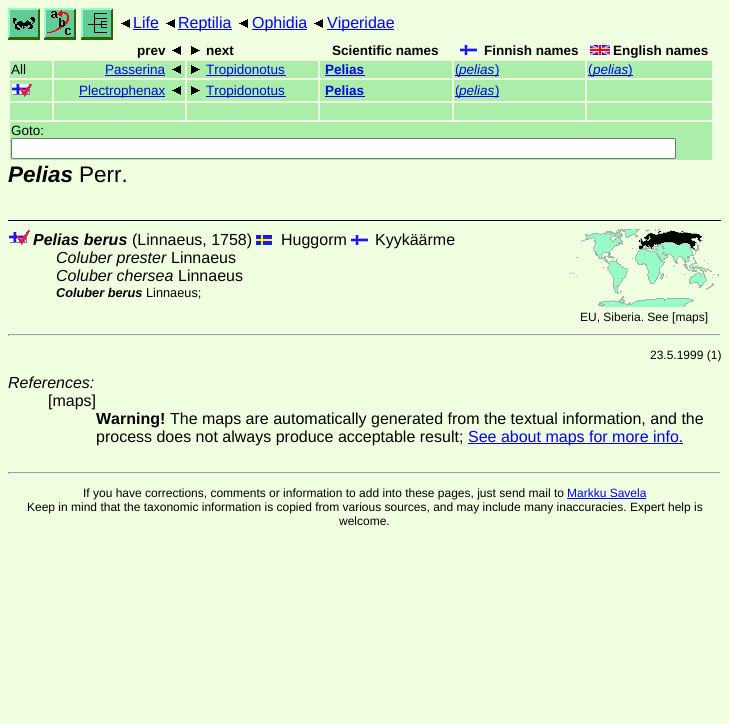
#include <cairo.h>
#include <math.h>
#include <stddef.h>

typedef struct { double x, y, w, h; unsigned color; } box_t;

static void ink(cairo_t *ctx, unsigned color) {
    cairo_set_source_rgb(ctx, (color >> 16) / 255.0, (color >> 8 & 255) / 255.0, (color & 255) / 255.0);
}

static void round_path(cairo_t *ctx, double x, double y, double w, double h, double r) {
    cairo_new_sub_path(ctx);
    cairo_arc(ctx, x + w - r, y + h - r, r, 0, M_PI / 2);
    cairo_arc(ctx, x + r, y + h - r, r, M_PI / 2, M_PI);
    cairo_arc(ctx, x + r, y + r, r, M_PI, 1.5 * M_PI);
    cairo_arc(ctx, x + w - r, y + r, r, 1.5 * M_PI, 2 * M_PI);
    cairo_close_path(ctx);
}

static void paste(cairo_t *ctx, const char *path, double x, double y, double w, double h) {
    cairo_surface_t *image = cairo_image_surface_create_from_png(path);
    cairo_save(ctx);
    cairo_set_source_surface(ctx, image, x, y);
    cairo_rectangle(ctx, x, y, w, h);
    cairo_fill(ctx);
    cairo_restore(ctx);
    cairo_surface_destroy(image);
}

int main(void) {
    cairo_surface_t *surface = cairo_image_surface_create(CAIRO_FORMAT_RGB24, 729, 724);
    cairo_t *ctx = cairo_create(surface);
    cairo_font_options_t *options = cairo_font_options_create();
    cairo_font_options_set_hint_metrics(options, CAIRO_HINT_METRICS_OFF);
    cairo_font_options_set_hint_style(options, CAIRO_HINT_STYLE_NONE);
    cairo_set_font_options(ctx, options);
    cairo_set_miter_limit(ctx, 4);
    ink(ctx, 0xF0FFE0);
    cairo_paint(ctx);
    paste(ctx, "media/1.png", 8, 8, 32, 32);
    paste(ctx, "media/2.png", 44, 8, 32, 32);
    paste(ctx, "media/3.png", 81, 8, 32, 32);
    paste(ctx, "media/4.png", 121, 19, 9, 9);
    cairo_select_font_face(ctx, "Liberation Sans", CAIRO_FONT_SLANT_NORMAL, CAIRO_FONT_WEIGHT_NORMAL);
    cairo_set_font_size(ctx, 16);
    ink(ctx, 0x0000EE);
    cairo_move_to(ctx, 133, 28);
    cairo_show_text(ctx, "Life");
    cairo_rectangle(ctx, 133, 29, 26, 1);
    cairo_fill(ctx);
    paste(ctx, "media/4.png", 166, 19, 9, 9);
    cairo_rectangle(ctx, 178, 29, 54, 1);
    cairo_fill(ctx);
    cairo_move_to(ctx, 178, 28);
    cairo_show_text(ctx, "Reptilia");
    paste(ctx, "media/4.png", 239, 19, 9, 9);
    cairo_rectangle(ctx, 252, 29, 55, 1);
    cairo_fill(ctx);
    cairo_move_to(ctx, 252, 28);
    cairo_show_text(ctx, "Ophidia");
    paste(ctx, "media/4.png", 314, 19, 9, 9);
    cairo_rectangle(ctx, 327, 29, 67, 1);
    cairo_fill(ctx);
    cairo_move_to(ctx, 327, 28);
    cairo_show_text(ctx, "Viperidae");
    cairo_select_font_face(ctx, "Liberation Sans", CAIRO_FONT_SLANT_NORMAL, CAIRO_FONT_WEIGHT_BOLD);
    cairo_set_font_size(ctx, 13.5);
    ink(ctx, 0x000000);
    cairo_move_to(ctx, 137, 55);
    cairo_show_text(ctx, "prev");
    paste(ctx, "media/4.png", 172, 46, 9, 9);
    paste(ctx, "media/5.png", 191, 46, 9, 9);
    cairo_move_to(ctx, 206, 55);
    cairo_show_text(ctx, "next");
    cairo_move_to(ctx, 332, 55);
    cairo_show_text(ctx, "Scientific names");
    paste(ctx, "media/6.png", 460, 45, 17, 10);
    cairo_move_to(ctx, 484, 55);
    cairo_show_text(ctx, "Finnish names");
    paste(ctx, "media/7.png", 590, 45, 20, 10);
    cairo_move_to(ctx, 613, 55);
    cairo_show_text(ctx, "English names");
    ink(ctx, 0xAAEEAA);
    cairo_rectangle(ctx, 10, 61, 42, 17);
    cairo_fill(ctx);
    cairo_select_font_face(ctx, "Liberation Sans", CAIRO_FONT_SLANT_NORMAL, CAIRO_FONT_WEIGHT_NORMAL);
    ink(ctx, 0x000000);
    cairo_move_to(ctx, 11, 74);
    cairo_show_text(ctx, "All");
    ink(ctx, 0xAAEEAA);
    cairo_rectangle(ctx, 54, 61, 131, 17);
    cairo_fill(ctx);
    ink(ctx, 0x0000EE);
    cairo_move_to(ctx, 105, 74);
    cairo_show_text(ctx, "Passerina");
    cairo_rectangle(ctx, 105, 75, 60, 1);
    cairo_fill(ctx);
    paste(ctx, "media/8.png", 172, 65, 9, 9);
    ink(ctx, 0xAAEEAA);
    cairo_rectangle(ctx, 187, 61, 131, 17);
    cairo_fill(ctx);
    paste(ctx, "media/9.png", 191, 65, 9, 9);
    ink(ctx, 0x0000EE);
    cairo_rectangle(ctx, 206, 75, 80, 1);
    cairo_fill(ctx);
    cairo_move_to(ctx, 206, 74);
    cairo_show_text(ctx, "Tropidonotus");
    ink(ctx, 0xAAEEAA);
    cairo_rectangle(ctx, 320, 61, 132, 17);
    cairo_fill(ctx);
    cairo_select_font_face(ctx, "Liberation Sans", CAIRO_FONT_SLANT_NORMAL, CAIRO_FONT_WEIGHT_BOLD);
    ink(ctx, 0x0000EE);
    cairo_move_to(ctx, 325, 74);
    cairo_show_text(ctx, "Pelias");
    {
        static const box_t items[] = {
            {325, 75, 40, 1, 0x0000EE},
            {454, 61, 131, 17, 0xAAEEAA},
            {455, 75, 4, 1, 0x0000EE},
        };
        for (size_t i = 0; i < sizeof items / sizeof *items; i++) {
            ink(ctx, items[i].color);
            cairo_rectangle(ctx, items[i].x, items[i].y, items[i].w, items[i].h);
            cairo_fill(ctx);
        }
    }
    cairo_select_font_face(ctx, "Liberation Sans", CAIRO_FONT_SLANT_NORMAL, CAIRO_FONT_WEIGHT_NORMAL);
    cairo_move_to(ctx, 455, 74);
    cairo_show_text(ctx, "(");
    cairo_rectangle(ctx, 459, 75, 40, 1);
    cairo_fill(ctx);
    cairo_select_font_face(ctx, "Liberation Sans", CAIRO_FONT_SLANT_ITALIC, CAIRO_FONT_WEIGHT_NORMAL);
    cairo_move_to(ctx, 459, 74);
    cairo_show_text(ctx, "pelias");
    cairo_select_font_face(ctx, "Liberation Sans", CAIRO_FONT_SLANT_NORMAL, CAIRO_FONT_WEIGHT_NORMAL);
    cairo_move_to(ctx, 495, 74);
    cairo_show_text(ctx, ")");
    ink(ctx, 0xAAEEAA);
    cairo_rectangle(ctx, 587, 61, 125, 17);
    cairo_fill(ctx);
    ink(ctx, 0x0000EE);
    cairo_rectangle(ctx, 588, 75, 40, 1);
    cairo_fill(ctx);
    cairo_move_to(ctx, 588, 74);
    cairo_show_text(ctx, "(");
    cairo_select_font_face(ctx, "Liberation Sans", CAIRO_FONT_SLANT_ITALIC, CAIRO_FONT_WEIGHT_NORMAL);
    cairo_move_to(ctx, 593, 74);
    cairo_show_text(ctx, "pelias");
    cairo_rectangle(ctx, 628, 75, 5, 1);
    cairo_fill(ctx);
    cairo_select_font_face(ctx, "Liberation Sans", CAIRO_FONT_SLANT_NORMAL, CAIRO_FONT_WEIGHT_NORMAL);
    cairo_move_to(ctx, 628, 74);
    cairo_show_text(ctx, ")");
    ink(ctx, 0xAAEEAA);
    cairo_rectangle(ctx, 10, 80, 42, 21);
    cairo_fill(ctx);
    paste(ctx, "media/10.png", 12, 84, 20, 13);
    cairo_rectangle(ctx, 54, 80, 131, 21);
    cairo_fill(ctx);
    ink(ctx, 0x0000EE);
    cairo_rectangle(ctx, 79, 96, 86, 1);
    cairo_fill(ctx);
    cairo_move_to(ctx, 79, 95);
    cairo_show_text(ctx, "Plectrophenax");
    paste(ctx, "media/8.png", 172, 86, 9, 9);
    ink(ctx, 0xAAEEAA);
    cairo_rectangle(ctx, 187, 80, 131, 21);
    cairo_fill(ctx);
    paste(ctx, "media/9.png", 191, 86, 9, 9);
    ink(ctx, 0x0000EE);
    cairo_rectangle(ctx, 206, 96, 80, 1);
    cairo_fill(ctx);
    cairo_move_to(ctx, 206, 95);
    cairo_show_text(ctx, "Tropidonotus");
    ink(ctx, 0xAAEEAA);
    cairo_rectangle(ctx, 320, 80, 132, 21);
    cairo_fill(ctx);
    cairo_select_font_face(ctx, "Liberation Sans", CAIRO_FONT_SLANT_NORMAL, CAIRO_FONT_WEIGHT_BOLD);
    ink(ctx, 0x0000EE);
    cairo_move_to(ctx, 325, 95);
    cairo_show_text(ctx, "Pelias");
    {
        static const box_t items[] = {
            {325, 96, 40, 1, 0x0000EE},
            {454, 80, 131, 21, 0xAAEEAA},
            {455, 96, 4, 1, 0x0000EE},
        };
        for (size_t i = 0; i < sizeof items / sizeof *items; i++) {
            ink(ctx, items[i].color);
            cairo_rectangle(ctx, items[i].x, items[i].y, items[i].w, items[i].h);
            cairo_fill(ctx);
        }
    }
    cairo_select_font_face(ctx, "Liberation Sans", CAIRO_FONT_SLANT_NORMAL, CAIRO_FONT_WEIGHT_NORMAL);
    cairo_move_to(ctx, 455, 95);
    cairo_show_text(ctx, "(");
    cairo_rectangle(ctx, 459, 96, 40, 1);
    cairo_fill(ctx);
    cairo_select_font_face(ctx, "Liberation Sans", CAIRO_FONT_SLANT_ITALIC, CAIRO_FONT_WEIGHT_NORMAL);
    cairo_move_to(ctx, 459, 95);
    cairo_show_text(ctx, "pelias");
    cairo_select_font_face(ctx, "Liberation Sans", CAIRO_FONT_SLANT_NORMAL, CAIRO_FONT_WEIGHT_NORMAL);
    cairo_move_to(ctx, 495, 95);
    cairo_show_text(ctx, ")");
    {
        static const box_t items[] = {
            {587, 80, 125, 21, 0xAAEEAA},
            {10, 103, 42, 17, 0xAAEEAA},
            {54, 103, 131, 17, 0xAAEEAA},
            {187, 103, 131, 17, 0xAAEEAA},
            {320, 103, 132, 17, 0xAAEEAA},
            {454, 103, 131, 17, 0xAAEEAA},
            {587, 103, 125, 17, 0xAAEEAA},
            {10, 122, 702, 38, 0xAAEEAA},
        };
        for (size_t i = 0; i < sizeof items / sizeof *items; i++) {
            ink(ctx, items[i].color);
            cairo_rectangle(ctx, items[i].x, items[i].y, items[i].w, items[i].h);
            cairo_fill(ctx);
        }
    }
    ink(ctx, 0x000000);
    cairo_move_to(ctx, 11, 135);
    cairo_show_text(ctx, "Goto:");
    ink(ctx, 0xFFFFFF);
    round_path(ctx, 11.5, 138.5, 664, 20, 1.5);
    cairo_fill_preserve(ctx);
    ink(ctx, 0x767676);
    cairo_set_line_width(ctx, 1);
    cairo_stroke(ctx);
    cairo_select_font_face(ctx, "Liberation Sans", CAIRO_FONT_SLANT_ITALIC, CAIRO_FONT_WEIGHT_BOLD);
    cairo_set_font_size(ctx, 22.5);
    ink(ctx, 0x000000);
    cairo_move_to(ctx, 8, 182);
    cairo_show_text(ctx, "Pelias");
    cairo_select_font_face(ctx, "Liberation Sans", CAIRO_FONT_SLANT_NORMAL, CAIRO_FONT_WEIGHT_NORMAL);
    cairo_move_to(ctx, 79, 182);
    cairo_show_text(ctx, "Perr.");
    cairo_rectangle(ctx, 8, 220, 713, 1);
    cairo_fill(ctx);
    paste(ctx, "media/11.png", 9, 230, 21, 15);
    cairo_select_font_face(ctx, "Liberation Sans", CAIRO_FONT_SLANT_ITALIC, CAIRO_FONT_WEIGHT_BOLD);
    cairo_set_font_size(ctx, 16);
    cairo_move_to(ctx, 33, 245);
    cairo_show_text(ctx, "Pelias berus");
    cairo_select_font_face(ctx, "Liberation Sans", CAIRO_FONT_SLANT_NORMAL, CAIRO_FONT_WEIGHT_NORMAL);
    cairo_move_to(ctx, 132, 245);
    cairo_show_text(ctx, "(Linnaeus, 1758)");
    paste(ctx, "media/12.png", 256, 235, 16, 10);
    cairo_move_to(ctx, 281, 245);
    cairo_show_text(ctx, "Huggorm");
    paste(ctx, "media/6.png", 351, 235, 17, 10);
    cairo_move_to(ctx, 375, 245);
    cairo_show_text(ctx, "Kyykäärme");
    cairo_select_font_face(ctx, "Liberation Sans", CAIRO_FONT_SLANT_ITALIC, CAIRO_FONT_WEIGHT_NORMAL);
    cairo_move_to(ctx, 56, 263);
    cairo_show_text(ctx, "Coluber prester");
    cairo_select_font_face(ctx, "Liberation Sans", CAIRO_FONT_SLANT_NORMAL, CAIRO_FONT_WEIGHT_NORMAL);
    cairo_move_to(ctx, 171, 263);
    cairo_show_text(ctx, "Linnaeus");
    cairo_select_font_face(ctx, "Liberation Sans", CAIRO_FONT_SLANT_ITALIC, CAIRO_FONT_WEIGHT_NORMAL);
    cairo_move_to(ctx, 56, 281);
    cairo_show_text(ctx, "Coluber chersea");
    cairo_select_font_face(ctx, "Liberation Sans", CAIRO_FONT_SLANT_NORMAL, CAIRO_FONT_WEIGHT_NORMAL);
    cairo_move_to(ctx, 178, 281);
    cairo_show_text(ctx, "Linnaeus");
    cairo_select_font_face(ctx, "Liberation Sans", CAIRO_FONT_SLANT_ITALIC, CAIRO_FONT_WEIGHT_BOLD);
    cairo_set_font_size(ctx, 12.75);
    cairo_move_to(ctx, 56, 297);
    cairo_show_text(ctx, "Coluber berus");
    cairo_select_font_face(ctx, "Liberation Sans", CAIRO_FONT_SLANT_NORMAL, CAIRO_FONT_WEIGHT_NORMAL);
    cairo_move_to(ctx, 146, 297);
    cairo_show_text(ctx, "Linnaeus;");
    paste(ctx, "media/13.png", 569, 229, 150, 78);
    cairo_set_font_size(ctx, 12);
    cairo_move_to(ctx, 580, 321);
    cairo_show_text(ctx, "EU, Siberia. See [maps]");
    {
        static const box_t items[] = {
            {8, 334, 713, 1, 0x9F9F9F},
            {720, 334, 1, 2, 0xEEEEEE},
            {8, 335, 713, 1, 0xEEEEEE},
            {8, 334, 1, 2, 0x9F9F9F},
        };
        for (size_t i = 0; i < sizeof items / sizeof *items; i++) {
            ink(ctx, items[i].color);
            cairo_rectangle(ctx, items[i].x, items[i].y, items[i].w, items[i].h);
            cairo_fill(ctx);
        }
    }
    ink(ctx, 0x000000);
    cairo_move_to(ctx, 650, 359);
    cairo_show_text(ctx, "23.5.1999 (1)");
    cairo_select_font_face(ctx, "Liberation Sans", CAIRO_FONT_SLANT_ITALIC, CAIRO_FONT_WEIGHT_NORMAL);
    cairo_set_font_size(ctx, 16);
    cairo_move_to(ctx, 8, 388);
    cairo_show_text(ctx, "References:");
    cairo_select_font_face(ctx, "Liberation Sans", CAIRO_FONT_SLANT_NORMAL, CAIRO_FONT_WEIGHT_NORMAL);
    cairo_move_to(ctx, 48, 406);
    cairo_show_text(ctx, "[maps]");
    cairo_select_font_face(ctx, "Liberation Sans", CAIRO_FONT_SLANT_NORMAL, CAIRO_FONT_WEIGHT_BOLD);
    cairo_move_to(ctx, 96, 424);
    cairo_show_text(ctx, "Warning!");
    cairo_select_font_face(ctx, "Liberation Sans", CAIRO_FONT_SLANT_NORMAL, CAIRO_FONT_WEIGHT_NORMAL);
    cairo_move_to(ctx, 170, 424);
    cairo_show_text(ctx, "The maps are automatically generated from the textual information, and the");
    cairo_move_to(ctx, 96, 442);
    cairo_show_text(ctx, "process does not always produce acceptable result;");
    ink(ctx, 0x0000EE);
    cairo_rectangle(ctx, 468, 443, 215, 1);
    cairo_fill(ctx);
    cairo_move_to(ctx, 468, 442);
    cairo_show_text(ctx, "See about maps for more info.");
    {
        static const box_t items[] = {
            {8, 472, 713, 1, 0x9F9F9F},
            {720, 472, 1, 2, 0xEEEEEE},
            {8, 473, 713, 1, 0xEEEEEE},
            {8, 472, 1, 2, 0x9F9F9F},
        };
        for (size_t i = 0; i < sizeof items / sizeof *items; i++) {
            ink(ctx, items[i].color);
            cairo_rectangle(ctx, items[i].x, items[i].y, items[i].w, items[i].h);
            cairo_fill(ctx);
        }
    }
    cairo_set_font_size(ctx, 12);
    ink(ctx, 0x000000);
    cairo_move_to(ctx, 83, 497);
    cairo_show_text(ctx, "If you have corrections, comments or information to add into these pages, just send mail to");
    ink(ctx, 0x0000EE);
    cairo_move_to(ctx, 567, 497);
    cairo_show_text(ctx, "Markku Savela");
    cairo_rectangle(ctx, 567, 498, 79, 1);
    cairo_fill(ctx);
    ink(ctx, 0x000000);
    cairo_move_to(ctx, 27, 511);
    cairo_show_text(ctx, "Keep in mind that the taxonomic information is copied from various sources, and may include many inaccuracies. Expert help is");
    cairo_move_to(ctx, 339, 525);
    cairo_show_text(ctx, "welcome.");
    cairo_surface_write_to_png(surface, "image.png");
    cairo_font_options_destroy(options);
    cairo_destroy(ctx);
    cairo_surface_destroy(surface);
    return 0;
}
